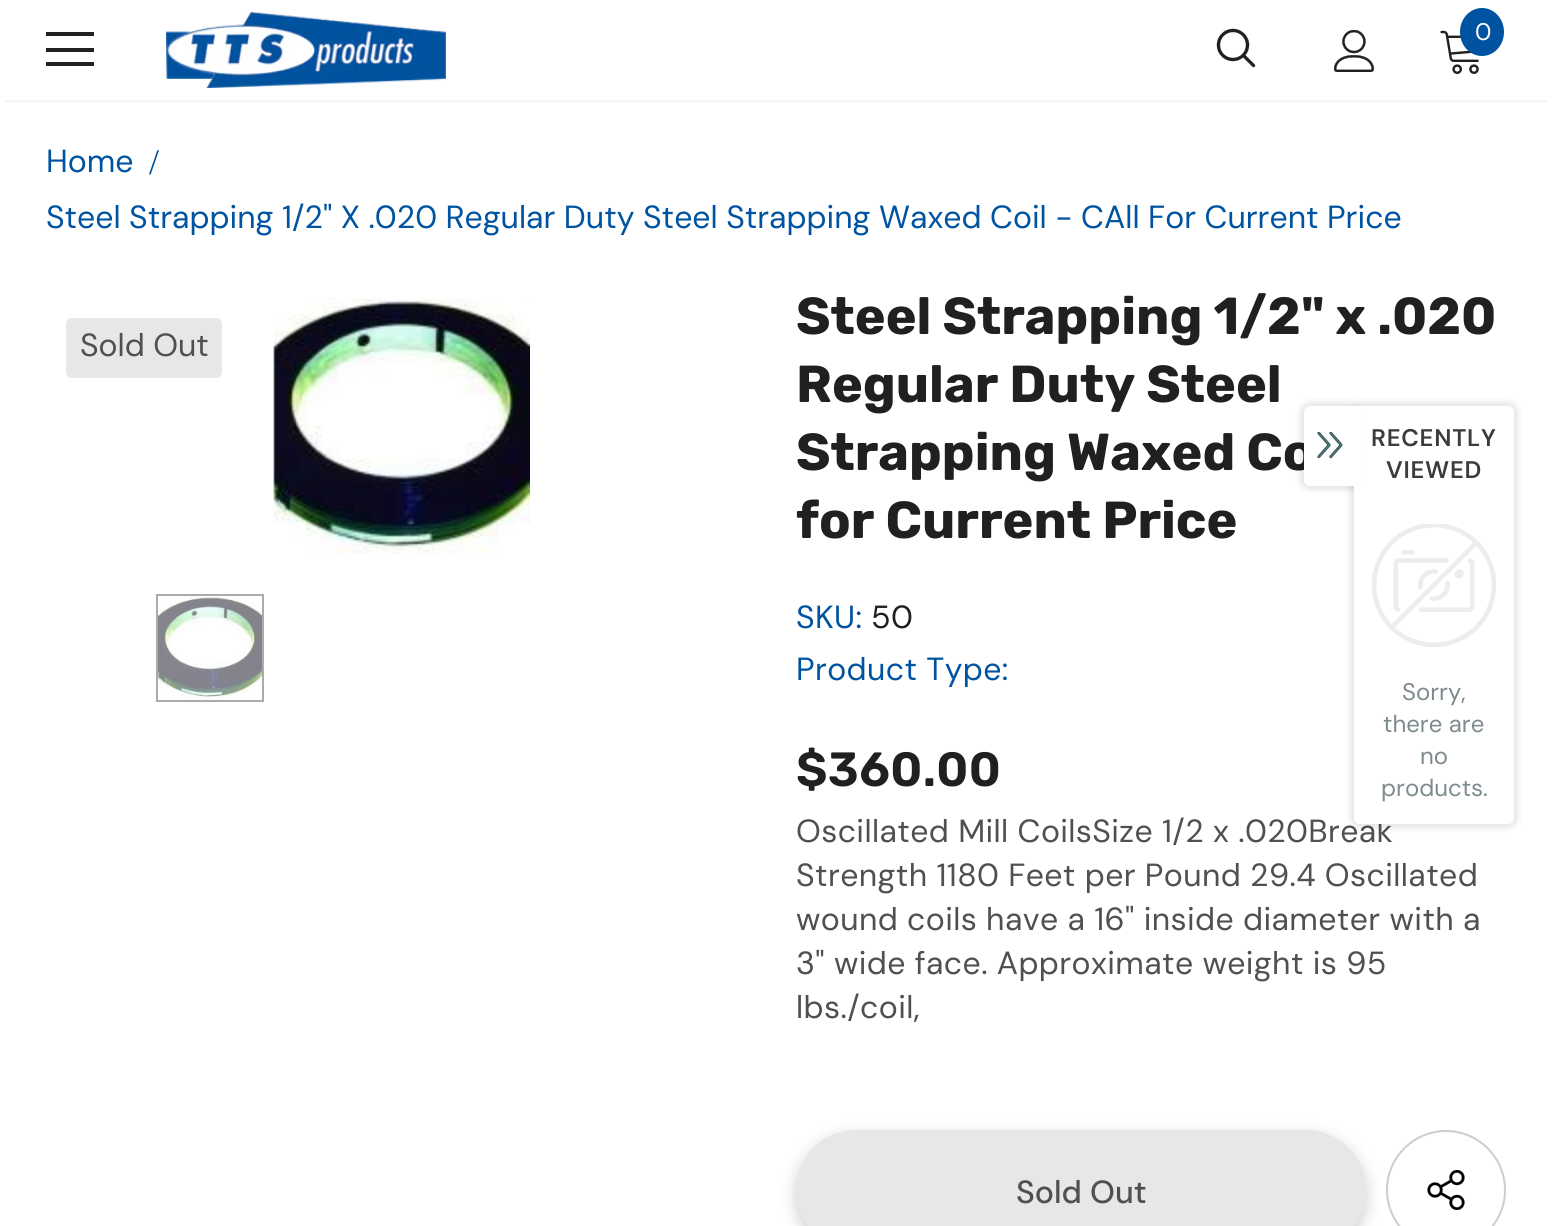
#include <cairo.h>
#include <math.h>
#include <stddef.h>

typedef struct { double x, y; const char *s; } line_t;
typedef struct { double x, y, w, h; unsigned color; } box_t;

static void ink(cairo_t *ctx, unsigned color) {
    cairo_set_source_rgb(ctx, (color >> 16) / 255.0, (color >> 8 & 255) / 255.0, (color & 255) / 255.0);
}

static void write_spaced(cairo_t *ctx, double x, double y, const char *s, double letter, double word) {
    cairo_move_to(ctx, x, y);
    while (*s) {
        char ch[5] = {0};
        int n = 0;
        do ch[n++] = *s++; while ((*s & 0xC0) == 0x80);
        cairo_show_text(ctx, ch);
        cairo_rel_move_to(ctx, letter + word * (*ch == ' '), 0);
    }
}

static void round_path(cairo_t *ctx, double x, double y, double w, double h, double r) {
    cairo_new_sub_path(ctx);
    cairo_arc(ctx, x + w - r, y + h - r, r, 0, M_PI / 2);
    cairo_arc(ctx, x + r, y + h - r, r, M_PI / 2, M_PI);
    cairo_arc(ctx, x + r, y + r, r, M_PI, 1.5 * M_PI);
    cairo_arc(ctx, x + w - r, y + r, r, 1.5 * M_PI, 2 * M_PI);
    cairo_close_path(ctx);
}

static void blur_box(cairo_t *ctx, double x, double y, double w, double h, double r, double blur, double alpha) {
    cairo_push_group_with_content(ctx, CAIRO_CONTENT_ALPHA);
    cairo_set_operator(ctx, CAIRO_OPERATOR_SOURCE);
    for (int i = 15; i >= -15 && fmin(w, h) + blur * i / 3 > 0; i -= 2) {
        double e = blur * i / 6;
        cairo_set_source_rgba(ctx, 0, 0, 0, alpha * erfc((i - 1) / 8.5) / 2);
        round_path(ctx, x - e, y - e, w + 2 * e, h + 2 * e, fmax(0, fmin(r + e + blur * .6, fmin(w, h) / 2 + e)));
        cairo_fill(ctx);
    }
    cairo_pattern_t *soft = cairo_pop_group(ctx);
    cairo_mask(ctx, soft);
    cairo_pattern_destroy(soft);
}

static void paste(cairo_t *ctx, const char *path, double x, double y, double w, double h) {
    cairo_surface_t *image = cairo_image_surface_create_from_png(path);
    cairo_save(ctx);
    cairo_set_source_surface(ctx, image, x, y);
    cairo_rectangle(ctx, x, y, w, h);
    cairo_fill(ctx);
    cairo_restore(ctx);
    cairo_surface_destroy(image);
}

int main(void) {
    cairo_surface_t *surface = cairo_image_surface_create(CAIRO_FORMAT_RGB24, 1552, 1226);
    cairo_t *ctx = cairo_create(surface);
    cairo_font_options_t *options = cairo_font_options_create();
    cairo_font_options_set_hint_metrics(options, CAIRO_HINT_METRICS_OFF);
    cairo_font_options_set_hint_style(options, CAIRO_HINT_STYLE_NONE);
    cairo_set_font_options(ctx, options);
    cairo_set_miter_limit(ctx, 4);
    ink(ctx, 0xFFFFFF);
    cairo_paint(ctx);
    cairo_save(ctx);
    cairo_rectangle(ctx, 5, 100, 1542, 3);
    cairo_clip(ctx);
    ink(ctx, 0x000000);
    blur_box(ctx, 6, 12, 1540, 88, 0, 3, 0.12);
    cairo_restore(ctx);
    {
        static const box_t items[] = {
            {46, 32, 48, 4, 0x202020},
            {46, 48, 48, 4, 0x202020},
            {46, 62, 48, 4, 0x202020},
        };
        for (size_t i = 0; i < sizeof items / sizeof *items; i++) {
            ink(ctx, items[i].color);
            cairo_rectangle(ctx, items[i].x, items[i].y, items[i].w, items[i].h);
            cairo_fill(ctx);
        }
    }
    paste(ctx, "media/1.png", 166, 12, 280, 76);
    paste(ctx, "media/2.png", 1216, 28, 40, 40);
    paste(ctx, "media/3.png", 1334, 30, 41, 42);
    paste(ctx, "media/4.png", 1440, 30, 39, 44);
    ink(ctx, 0x0053A0);
    cairo_new_path(ctx);
    cairo_move_to(ctx, 1482, 8);
    cairo_curve_to(ctx, 1494, 8, 1504, 18.5, 1504, 32);
    cairo_curve_to(ctx, 1504, 45.5, 1494, 56, 1482, 56);
    cairo_curve_to(ctx, 1470, 56, 1460, 45.5, 1460, 32);
    cairo_curve_to(ctx, 1460, 18.5, 1470, 8, 1482, 8);
    cairo_close_path(ctx);
    cairo_fill(ctx);
    cairo_select_font_face(ctx, "DM Sans", CAIRO_FONT_SLANT_NORMAL, CAIRO_FONT_WEIGHT_NORMAL);
    cairo_set_font_size(ctx, 24);
    ink(ctx, 0xFFFFFF);
    cairo_move_to(ctx, 1475, 40);
    cairo_show_text(ctx, "0");
    cairo_set_font_size(ctx, 32);
    ink(ctx, 0x0053A0);
    cairo_move_to(ctx, 46, 172);
    cairo_show_text(ctx, "Home");
    cairo_select_font_face(ctx, "Liberation Serif", CAIRO_FONT_SLANT_NORMAL, CAIRO_FONT_WEIGHT_NORMAL);
    cairo_set_font_size(ctx, 36);
    cairo_move_to(ctx, 149, 174);
    cairo_show_text(ctx, "/");
    cairo_select_font_face(ctx, "DM Sans", CAIRO_FONT_SLANT_NORMAL, CAIRO_FONT_WEIGHT_NORMAL);
    cairo_set_font_size(ctx, 32);
    cairo_move_to(ctx, 46, 228);
    cairo_show_text(ctx, "Steel Strapping 1/2\" X .020 Regular Duty Steel Strapping Waxed Coil - CAll For Current Price");
    ink(ctx, 0xE7E7E7);
    round_path(ctx, 66, 318, 156, 60, 6);
    cairo_fill(ctx);
    ink(ctx, 0x505050);
    cairo_move_to(ctx, 80, 356);
    cairo_show_text(ctx, "Sold Out");
    paste(ctx, "media/5.png", 273, 298, 257, 256);
    cairo_rectangle(ctx, 157, 595, 106, 106);
    ink(ctx, 0xABABAB);
    cairo_stroke(ctx);
    paste(ctx, "media/6.png", 158, 596, 104, 104);
    cairo_select_font_face(ctx, "Rubik", CAIRO_FONT_SLANT_NORMAL, CAIRO_FONT_WEIGHT_BOLD);
    cairo_set_font_size(ctx, 52);
    ink(ctx, 0x202020);
    {
        static const line_t items[] = {
            {796, 334, "Steel Strapping 1/2\" x .020"},
            {796, 402, "Regular Duty Steel"},
            {796, 470, "Strapping Waxed Co"},
            {796, 538, "for Current Price"},
        };
        for (size_t i = 0; i < sizeof items / sizeof *items; i++) {
            cairo_move_to(ctx, items[i].x, items[i].y);
            cairo_show_text(ctx, items[i].s);
        }
    }
    cairo_select_font_face(ctx, "DM Sans", CAIRO_FONT_SLANT_NORMAL, CAIRO_FONT_WEIGHT_NORMAL);
    cairo_set_font_size(ctx, 32);
    ink(ctx, 0x0053A0);
    write_spaced(ctx, 796, 628, "SKU:", 0.4, 0);
    ink(ctx, 0x202020);
    write_spaced(ctx, 871, 628, "50", 0.4, 0);
    ink(ctx, 0x0053A0);
    write_spaced(ctx, 796, 680, "Product Type:", 0.4, 0);
    cairo_select_font_face(ctx, "Rubik SemiBold", CAIRO_FONT_SLANT_NORMAL, CAIRO_FONT_WEIGHT_NORMAL);
    cairo_set_font_size(ctx, 48);
    ink(ctx, 0x202020);
    write_spaced(ctx, 796, 786, "$360.00", 0.4, 0);
    cairo_select_font_face(ctx, "DM Sans", CAIRO_FONT_SLANT_NORMAL, CAIRO_FONT_WEIGHT_NORMAL);
    cairo_set_font_size(ctx, 32);
    ink(ctx, 0x505050);
    {
        static const line_t items[] = {
            {796, 842, "Oscillated Mill CoilsSize 1/2 x .020Break"},
            {796, 886, "Strength 1180 Feet per Pound 29.4 Oscillated"},
            {796, 930, "wound coils have a 16\" inside diameter with a"},
            {796, 974, "3\" wide face. Approximate weight is 95"},
            {796, 1018, "lbs./coil,"},
        };
        for (size_t i = 0; i < sizeof items / sizeof *items; i++) {
            write_spaced(ctx, items[i].x, items[i].y, items[i].s, 0.4, 0);
        }
    }
    ink(ctx, 0x000000);
    blur_box(ctx, 796, 1136, 570, 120, 60, 8, 0.2);
    ink(ctx, 0xE7E7E7);
    round_path(ctx, 797, 1131, 568, 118, 59);
    cairo_fill_preserve(ctx);
    cairo_stroke(ctx);
    cairo_select_font_face(ctx, "DM Sans Medium", CAIRO_FONT_SLANT_NORMAL, CAIRO_FONT_WEIGHT_NORMAL);
    ink(ctx, 0x505050);
    cairo_move_to(ctx, 1016, 1203);
    cairo_show_text(ctx, "Sold Out");
    cairo_new_path(ctx);
    cairo_arc(ctx, 1446, 1190, 59, 0, 2 * M_PI);
    ink(ctx, 0xCDCDCD);
    cairo_stroke(ctx);
    paste(ctx, "media/7.png", 1427, 1170, 38, 40);
    ink(ctx, 0x000000);
    blur_box(ctx, 1350, 402, 168, 426, 10, 3, 0.1);
    ink(ctx, 0xFFFFFF);
    cairo_new_path(ctx);
    cairo_move_to(ctx, 1354, 406);
    cairo_line_to(ctx, 1508, 406);
    cairo_curve_to(ctx, 1511.5, 406, 1514, 408.5, 1514, 412);
    cairo_line_to(ctx, 1514, 818);
    cairo_curve_to(ctx, 1514, 821.5, 1511.5, 824, 1508, 824);
    cairo_line_to(ctx, 1360, 824);
    cairo_curve_to(ctx, 1356.5, 824, 1354, 821.5, 1354, 818);
    cairo_close_path(ctx);
    cairo_fill(ctx);
    ink(ctx, 0x000000);
    blur_box(ctx, 1300, 402, 60, 88, 10, 3, 0.1);
    ink(ctx, 0xFFFFFF);
    cairo_new_path(ctx);
    cairo_move_to(ctx, 1310, 406);
    cairo_line_to(ctx, 1356, 406);
    cairo_line_to(ctx, 1356, 486);
    cairo_line_to(ctx, 1310, 486);
    cairo_curve_to(ctx, 1306.5, 486, 1304, 483.5, 1304, 480);
    cairo_line_to(ctx, 1304, 412);
    cairo_curve_to(ctx, 1304, 408.5, 1306.5, 406, 1310, 406);
    cairo_close_path(ctx);
    cairo_fill(ctx);
    paste(ctx, "media/8.png", 1317, 432, 26, 27);
    cairo_rectangle(ctx, 1354, 406, 10, 87);
    cairo_fill(ctx);
    cairo_select_font_face(ctx, "DM Sans SemiBold", CAIRO_FONT_SLANT_NORMAL, CAIRO_FONT_WEIGHT_NORMAL);
    cairo_set_font_size(ctx, 24);
    ink(ctx, 0x3C3C3C);
    write_spaced(ctx, 1371, 446, "RECENTLY", 0.75, 0);
    write_spaced(ctx, 1386, 478, "VIEWED", 0.75, 0);
    paste(ctx, "media/9.png", 1372, 524, 124, 123);
    cairo_select_font_face(ctx, "DM Sans", CAIRO_FONT_SLANT_NORMAL, CAIRO_FONT_WEIGHT_NORMAL);
    ink(ctx, 0x7D8B8E);
    {
        static const line_t items[] = {
            {1402, 700, "Sorry,"},
            {1383, 732, "there are"},
            {1420, 764, "no"},
            {1381, 796, "products."},
        };
        for (size_t i = 0; i < sizeof items / sizeof *items; i++) {
            cairo_move_to(ctx, items[i].x, items[i].y);
            cairo_show_text(ctx, items[i].s);
        }
    }
    cairo_surface_write_to_png(surface, "image.png");
    cairo_font_options_destroy(options);
    cairo_destroy(ctx);
    cairo_surface_destroy(surface);
    return 0;
}
